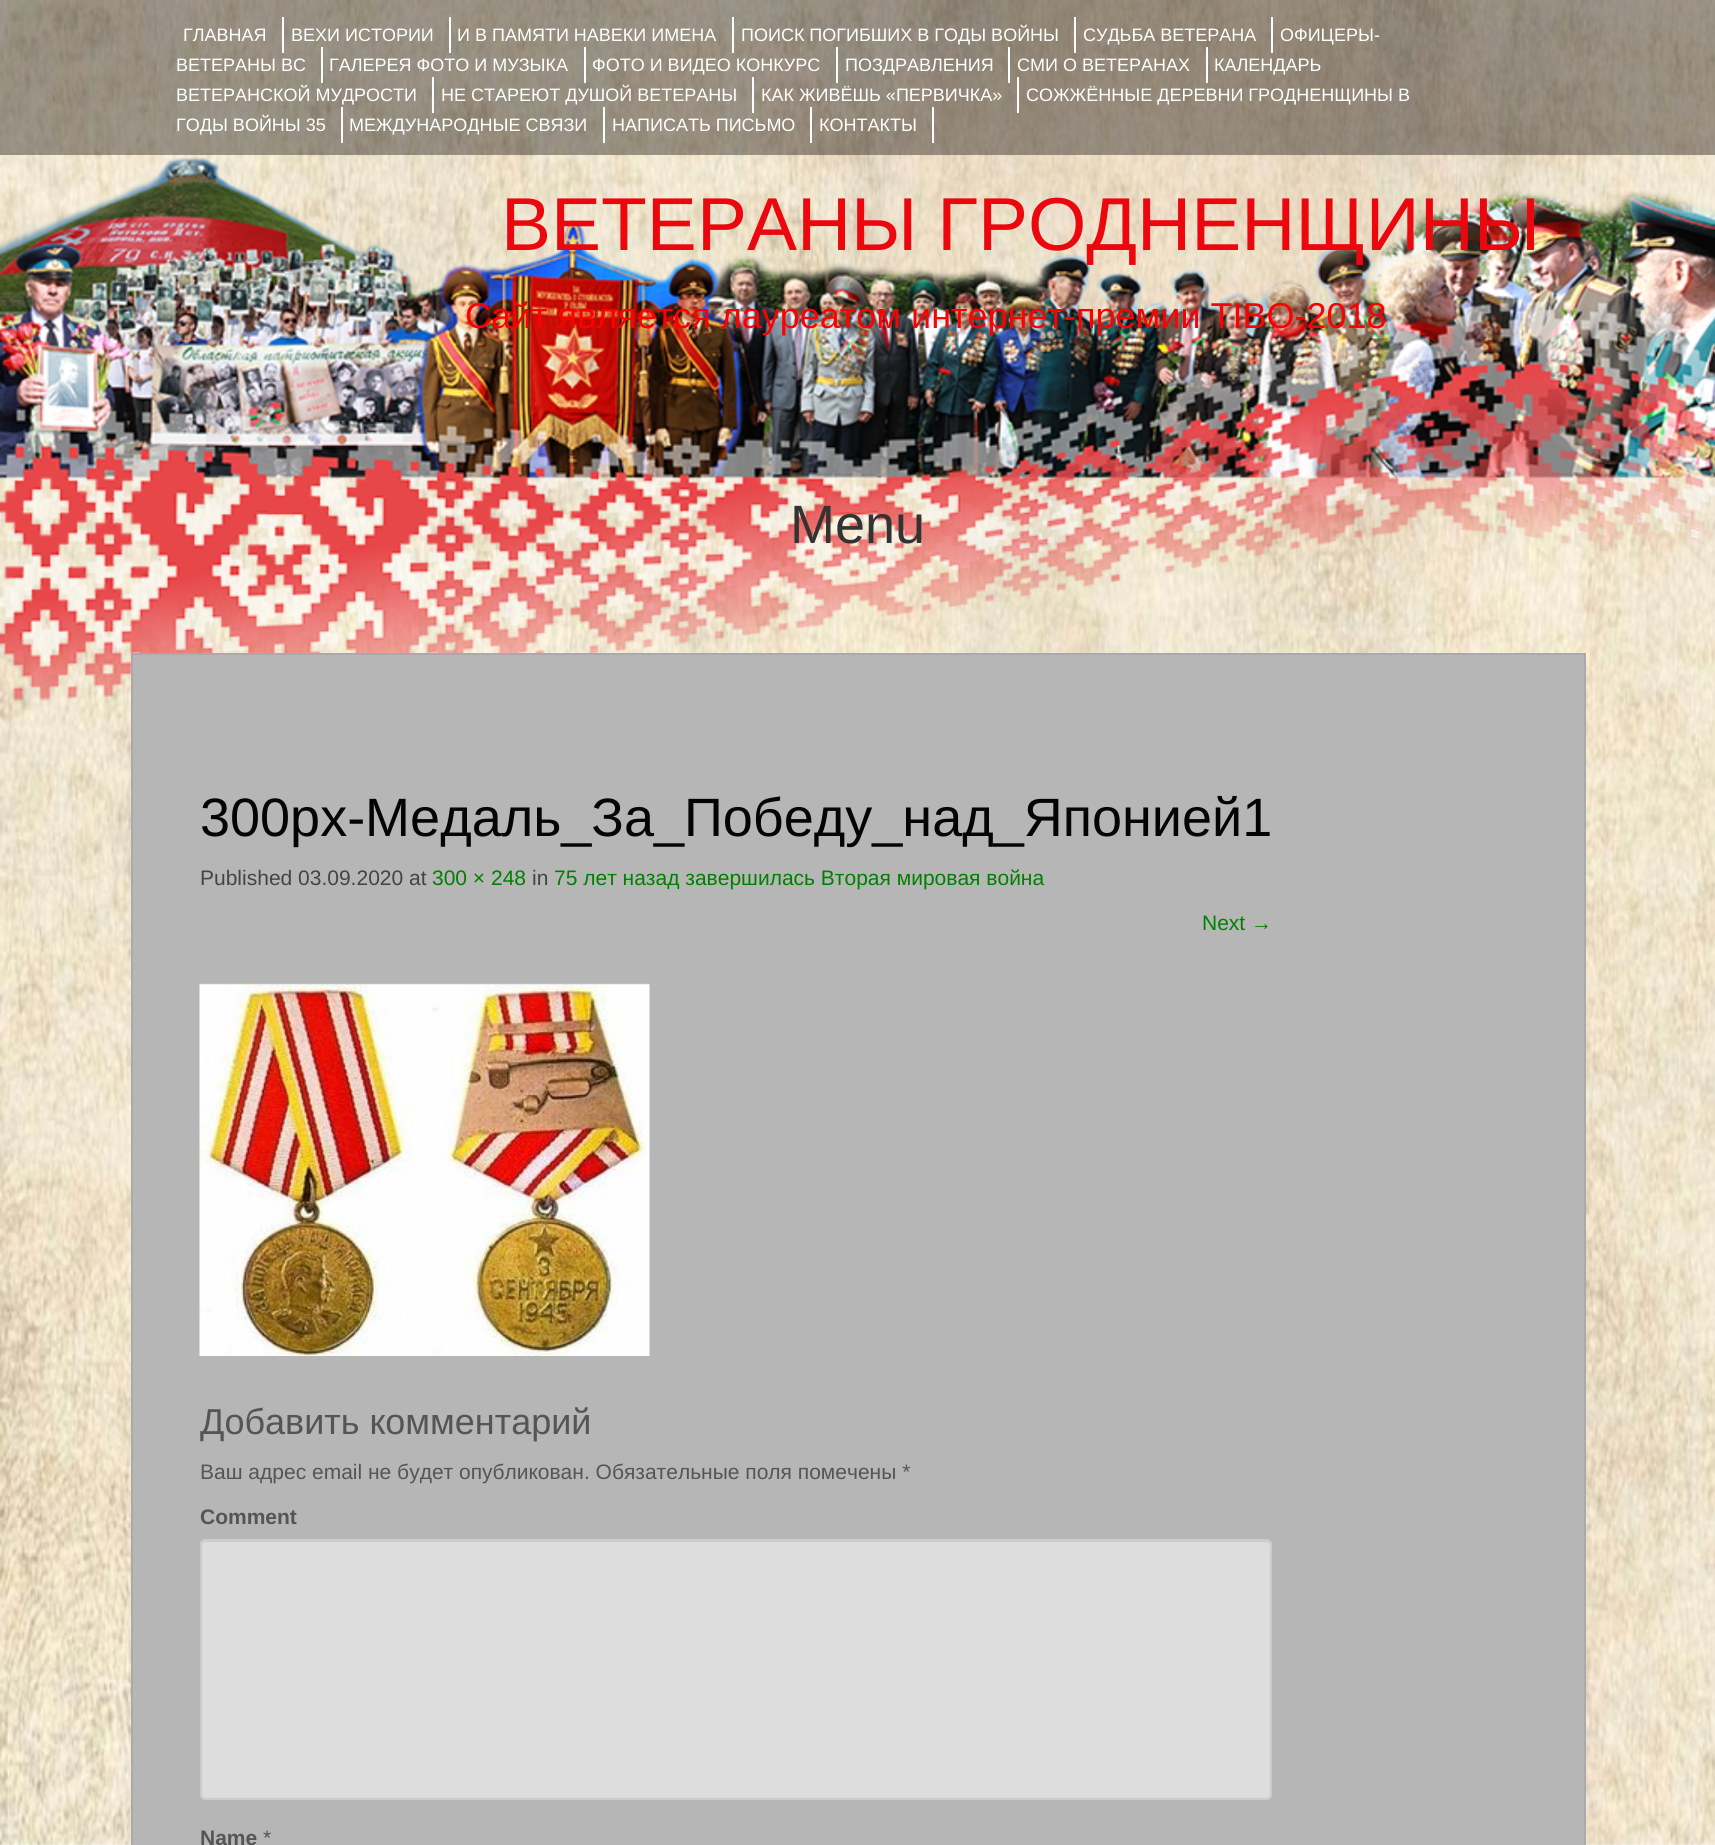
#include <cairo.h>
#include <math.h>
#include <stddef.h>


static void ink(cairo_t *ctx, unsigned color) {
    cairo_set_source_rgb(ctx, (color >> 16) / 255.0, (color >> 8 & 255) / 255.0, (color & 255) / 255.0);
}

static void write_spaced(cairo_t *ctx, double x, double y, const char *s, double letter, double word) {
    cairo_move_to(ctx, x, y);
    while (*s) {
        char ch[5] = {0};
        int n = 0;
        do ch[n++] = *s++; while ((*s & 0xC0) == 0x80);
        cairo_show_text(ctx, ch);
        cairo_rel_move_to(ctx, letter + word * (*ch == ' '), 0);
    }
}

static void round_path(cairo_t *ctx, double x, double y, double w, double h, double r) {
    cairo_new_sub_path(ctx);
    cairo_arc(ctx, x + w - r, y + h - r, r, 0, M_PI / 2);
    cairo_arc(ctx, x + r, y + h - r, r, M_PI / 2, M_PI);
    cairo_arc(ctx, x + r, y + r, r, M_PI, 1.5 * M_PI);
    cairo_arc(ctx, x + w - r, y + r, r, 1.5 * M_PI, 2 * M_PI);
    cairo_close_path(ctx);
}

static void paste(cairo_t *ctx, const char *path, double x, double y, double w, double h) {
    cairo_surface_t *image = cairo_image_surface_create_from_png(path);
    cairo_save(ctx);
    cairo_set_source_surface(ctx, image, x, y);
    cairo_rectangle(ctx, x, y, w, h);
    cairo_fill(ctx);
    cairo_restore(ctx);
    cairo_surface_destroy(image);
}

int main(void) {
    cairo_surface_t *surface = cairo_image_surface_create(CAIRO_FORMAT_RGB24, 1715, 1845);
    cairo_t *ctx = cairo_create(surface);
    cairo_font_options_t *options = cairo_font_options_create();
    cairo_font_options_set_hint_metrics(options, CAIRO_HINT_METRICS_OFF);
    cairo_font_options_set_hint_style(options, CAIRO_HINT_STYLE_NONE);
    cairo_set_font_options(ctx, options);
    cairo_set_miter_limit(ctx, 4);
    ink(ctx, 0xF7F7F7);
    cairo_paint(ctx);
    paste(ctx, "media/1.png", 0, 0, 1715, 1845);
    cairo_set_source_rgba(ctx, 0.071, 0.051, 0.047, 0.4);
    cairo_rectangle(ctx, 0, 0, 1715, 155);
    cairo_fill(ctx);
    cairo_select_font_face(ctx, "Liberation Sans", CAIRO_FONT_SLANT_NORMAL, CAIRO_FONT_WEIGHT_NORMAL);
    cairo_set_font_size(ctx, 18);
    ink(ctx, 0xFFFFFF);
    cairo_move_to(ctx, 183, 41);
    cairo_show_text(ctx, "ГЛАВНАЯ");
    cairo_rectangle(ctx, 282, 17, 2, 36);
    cairo_fill(ctx);
    cairo_move_to(ctx, 291, 41);
    cairo_show_text(ctx, "ВЕХИ ИСТОРИИ");
    cairo_rectangle(ctx, 449, 17, 2, 36);
    cairo_fill(ctx);
    cairo_move_to(ctx, 457, 41);
    cairo_show_text(ctx, "И В ПАМЯТИ НАВЕКИ ИМЕНА");
    cairo_rectangle(ctx, 732, 17, 2, 36);
    cairo_fill(ctx);
    cairo_move_to(ctx, 741, 41);
    cairo_show_text(ctx, "ПОИСК ПОГИБШИХ В ГОДЫ ВОЙНЫ");
    cairo_rectangle(ctx, 1074, 17, 2, 36);
    cairo_fill(ctx);
    cairo_move_to(ctx, 1083, 41);
    cairo_show_text(ctx, "СУДЬБА ВЕТЕРАНА");
    cairo_rectangle(ctx, 1271, 17, 2, 36);
    cairo_fill(ctx);
    cairo_move_to(ctx, 1280, 41);
    cairo_show_text(ctx, "ОФИЦЕРЫ-");
    cairo_move_to(ctx, 176, 71);
    cairo_show_text(ctx, "ВЕТЕРАНЫ ВС");
    cairo_rectangle(ctx, 321, 47, 2, 36);
    cairo_fill(ctx);
    cairo_move_to(ctx, 329, 71);
    cairo_show_text(ctx, "ГАЛЕРЕЯ ФОТО И МУЗЫКА");
    cairo_rectangle(ctx, 584, 47, 2, 36);
    cairo_fill(ctx);
    cairo_move_to(ctx, 592, 71);
    cairo_show_text(ctx, "ФОТО И ВИДЕО КОНКУРС");
    cairo_rectangle(ctx, 836, 47, 2, 36);
    cairo_fill(ctx);
    cairo_move_to(ctx, 845, 71);
    cairo_show_text(ctx, "ПОЗДРАВЛЕНИЯ");
    cairo_rectangle(ctx, 1008, 47, 2, 36);
    cairo_fill(ctx);
    cairo_move_to(ctx, 1017, 71);
    cairo_show_text(ctx, "СМИ О ВЕТЕРАНАХ");
    cairo_rectangle(ctx, 1206, 47, 2, 36);
    cairo_fill(ctx);
    cairo_move_to(ctx, 1214, 71);
    cairo_show_text(ctx, "КАЛЕНДАРЬ");
    cairo_move_to(ctx, 176, 101);
    cairo_show_text(ctx, "ВЕТЕРАНСКОЙ МУДРОСТИ");
    cairo_rectangle(ctx, 432, 77, 2, 36);
    cairo_fill(ctx);
    cairo_move_to(ctx, 441, 101);
    cairo_show_text(ctx, "НЕ СТАРЕЮТ ДУШОЙ ВЕТЕРАНЫ");
    cairo_rectangle(ctx, 752, 77, 2, 36);
    cairo_fill(ctx);
    cairo_move_to(ctx, 761, 101);
    cairo_show_text(ctx, "КАК ЖИВЁШЬ «ПЕРВИЧКА»");
    cairo_rectangle(ctx, 1017, 77, 2, 36);
    cairo_fill(ctx);
    cairo_move_to(ctx, 1026, 101);
    cairo_show_text(ctx, "СОЖЖЁННЫЕ ДЕРЕВНИ ГРОДНЕНЩИНЫ В");
    cairo_move_to(ctx, 176, 131);
    cairo_show_text(ctx, "ГОДЫ ВОЙНЫ 35");
    cairo_rectangle(ctx, 341, 107, 2, 36);
    cairo_fill(ctx);
    cairo_move_to(ctx, 349, 131);
    cairo_show_text(ctx, "МЕЖДУНАРОДНЫЕ СВЯЗИ");
    cairo_rectangle(ctx, 603, 107, 2, 36);
    cairo_fill(ctx);
    cairo_move_to(ctx, 612, 131);
    cairo_show_text(ctx, "НАПИСАТЬ ПИСЬМО");
    cairo_rectangle(ctx, 810, 107, 2, 36);
    cairo_fill(ctx);
    cairo_move_to(ctx, 819, 131);
    cairo_show_text(ctx, "КОНТАКТЫ");
    cairo_rectangle(ctx, 932, 107, 2, 36);
    cairo_fill(ctx);
    paste(ctx, "media/3.png", 0, 157, 1715, 544);
    cairo_set_font_size(ctx, 75);
    ink(ctx, 0xEC070E);
    write_spaced(ctx, 501, 250, "ВЕТЕРАНЫ ГРОДНЕНЩИНЫ", 0, -1);
    cairo_set_font_size(ctx, 36);
    ink(ctx, 0xFF0000);
    cairo_move_to(ctx, 465, 328);
    cairo_show_text(ctx, "Сайт является лауреатом интернет-премии TIBO-2018");
    cairo_set_font_size(ctx, 54);
    ink(ctx, 0x333333);
    cairo_move_to(ctx, 790, 543);
    cairo_show_text(ctx, "Menu");
    ink(ctx, 0xB6B6B6);
    cairo_rectangle(ctx, 132, 654, 1453, 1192);
    cairo_fill_preserve(ctx);
    ink(ctx, 0xAAAAAA);
    cairo_stroke(ctx);
    ink(ctx, 0x040404);
    cairo_move_to(ctx, 200, 836);
    cairo_show_text(ctx, "300px-Медаль_За_Победу_над_Японией1");
    cairo_set_font_size(ctx, 21);
    ink(ctx, 0x444444);
    cairo_move_to(ctx, 200, 885);
    cairo_show_text(ctx, "Published 03.09.2020 at");
    ink(ctx, 0x008000);
    cairo_move_to(ctx, 432, 885);
    cairo_show_text(ctx, "300 × 248");
    ink(ctx, 0x444444);
    cairo_move_to(ctx, 532, 885);
    cairo_show_text(ctx, "in");
    ink(ctx, 0x008000);
    cairo_move_to(ctx, 554, 885);
    cairo_show_text(ctx, "75 лет назад завершилась Вторая мировая война");
    cairo_move_to(ctx, 1202, 930);
    cairo_show_text(ctx, "Next →");
    paste(ctx, "media/2.png", 199, 983, 451, 373);
    cairo_set_font_size(ctx, 36);
    ink(ctx, 0x555555);
    cairo_move_to(ctx, 200, 1434);
    cairo_show_text(ctx, "Добавить комментарий");
    cairo_set_font_size(ctx, 21);
    cairo_move_to(ctx, 200, 1479);
    cairo_show_text(ctx, "Ваш адрес email не будет опубликован. Обязательные поля помечены *");
    cairo_select_font_face(ctx, "Liberation Sans", CAIRO_FONT_SLANT_NORMAL, CAIRO_FONT_WEIGHT_BOLD);
    cairo_move_to(ctx, 200, 1524);
    cairo_show_text(ctx, "Comment");
    ink(ctx, 0xDDDDDD);
    round_path(ctx, 200, 1539, 1072, 261, 6);
    cairo_fill(ctx);
    ink(ctx, 0xCCCCCC);
    cairo_new_path(ctx);
    cairo_move_to(ctx, 206, 1542);
    cairo_line_to(ctx, 1266, 1542);
    cairo_curve_to(ctx, 1268, 1542, 1270, 1544, 1270, 1546);
    cairo_line_to(ctx, 1270, 1797);
    cairo_curve_to(ctx, 1271, 1796, 1271, 1795, 1271, 1794);
    cairo_line_to(ctx, 1271, 1546);
    cairo_curve_to(ctx, 1271, 1543, 1269, 1541, 1266, 1541);
    cairo_line_to(ctx, 206, 1541);
    cairo_curve_to(ctx, 203, 1541, 201, 1543, 201, 1546);
    cairo_curve_to(ctx, 201, 1544, 203, 1542, 206, 1542);
    cairo_close_path(ctx);
    cairo_fill(ctx);
    round_path(ctx, 201, 1540, 1070, 259, 5);
    cairo_stroke(ctx);
    ink(ctx, 0x555555);
    cairo_move_to(ctx, 200, 1845);
    cairo_show_text(ctx, "Name");
    cairo_select_font_face(ctx, "Liberation Sans", CAIRO_FONT_SLANT_NORMAL, CAIRO_FONT_WEIGHT_NORMAL);
    cairo_move_to(ctx, 263, 1845);
    cairo_show_text(ctx, "*");
    cairo_surface_write_to_png(surface, "image.png");
    cairo_font_options_destroy(options);
    cairo_destroy(ctx);
    cairo_surface_destroy(surface);
    return 0;
}
